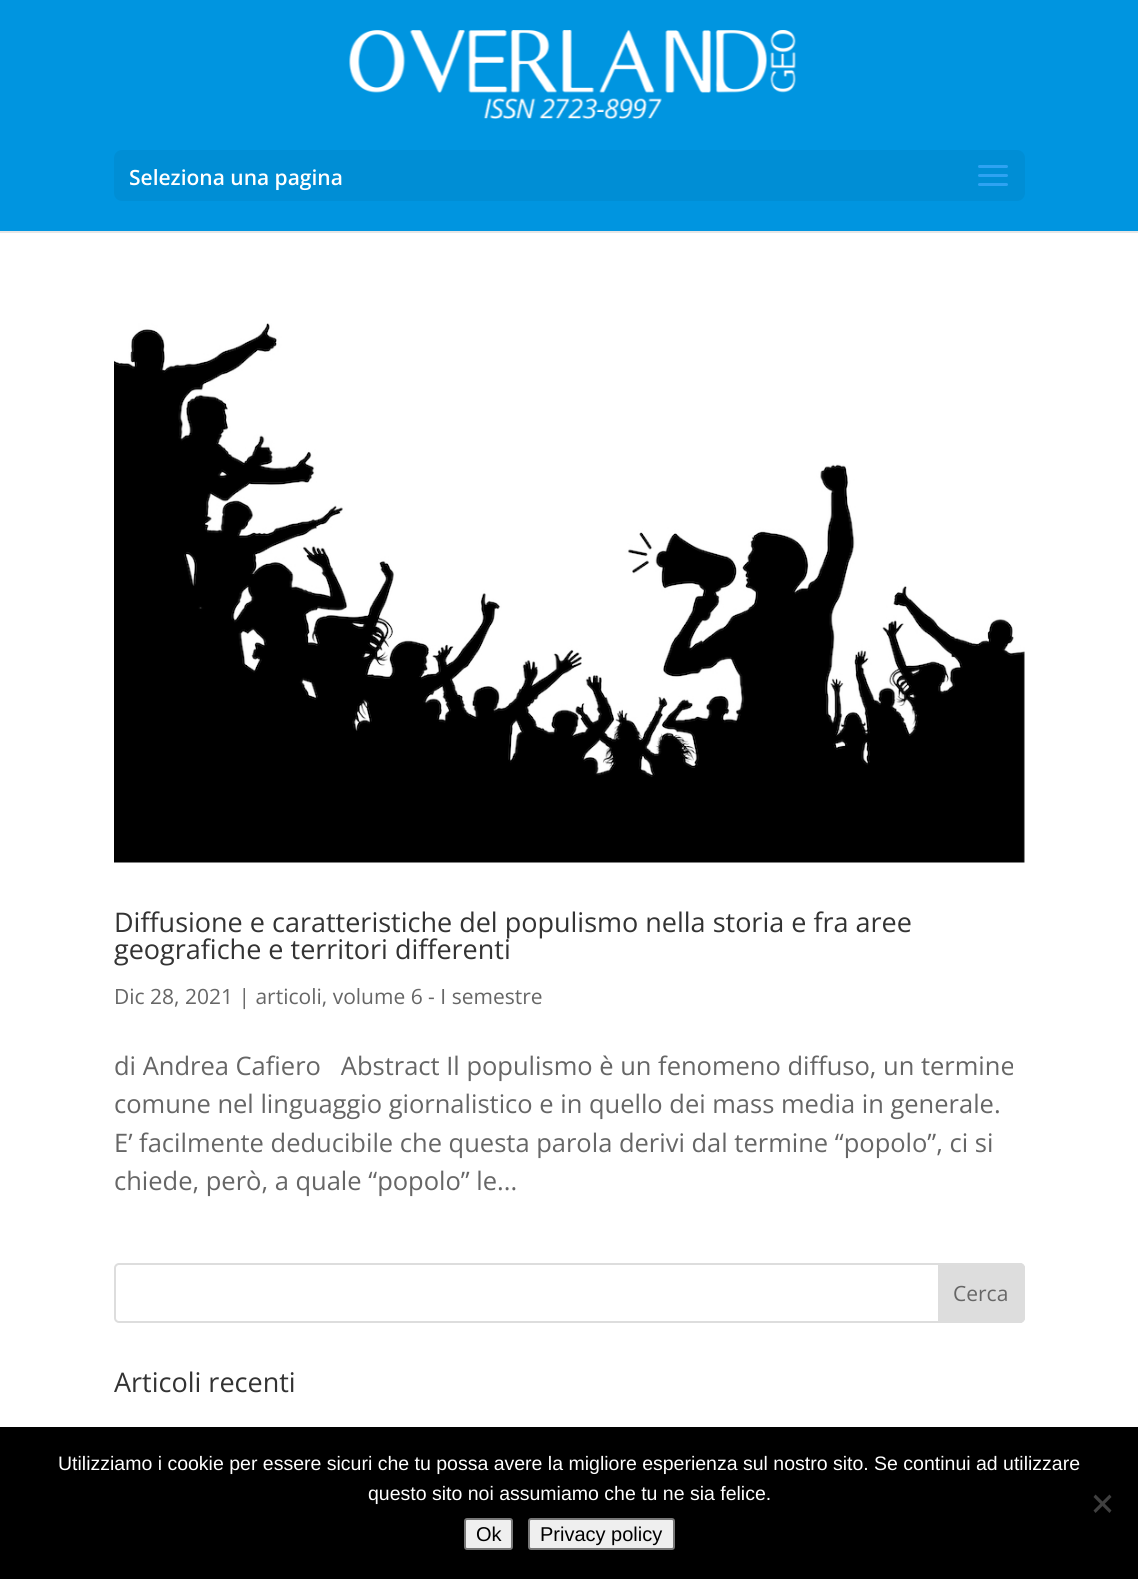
#include <cairo.h>
#include <math.h>
#include <stddef.h>

typedef struct { double x, y; const char *s; } line_t;

static void ink(cairo_t *ctx, unsigned color) {
    cairo_set_source_rgb(ctx, (color >> 16) / 255.0, (color >> 8 & 255) / 255.0, (color & 255) / 255.0);
}

static void round_path(cairo_t *ctx, double x, double y, double w, double h, double r) {
    cairo_new_sub_path(ctx);
    cairo_arc(ctx, x + w - r, y + h - r, r, 0, M_PI / 2);
    cairo_arc(ctx, x + r, y + h - r, r, M_PI / 2, M_PI);
    cairo_arc(ctx, x + r, y + r, r, M_PI, 1.5 * M_PI);
    cairo_arc(ctx, x + w - r, y + r, r, 1.5 * M_PI, 2 * M_PI);
    cairo_close_path(ctx);
}

static void paste(cairo_t *ctx, const char *path, double x, double y, double w, double h) {
    cairo_surface_t *image = cairo_image_surface_create_from_png(path);
    cairo_save(ctx);
    cairo_set_source_surface(ctx, image, x, y);
    cairo_rectangle(ctx, x, y, w, h);
    cairo_fill(ctx);
    cairo_restore(ctx);
    cairo_surface_destroy(image);
}

int main(void) {
    cairo_surface_t *surface = cairo_image_surface_create(CAIRO_FORMAT_RGB24, 1138, 1579);
    cairo_t *ctx = cairo_create(surface);
    cairo_font_options_t *options = cairo_font_options_create();
    cairo_font_options_set_hint_metrics(options, CAIRO_HINT_METRICS_OFF);
    cairo_font_options_set_hint_style(options, CAIRO_HINT_STYLE_NONE);
    cairo_set_font_options(ctx, options);
    cairo_set_miter_limit(ctx, 4);
    ink(ctx, 0xFFFFFF);
    cairo_paint(ctx);
    ink(ctx, 0xE6E6E6);
    cairo_new_path(ctx);
    cairo_move_to(ctx, 0, 231);
    cairo_line_to(ctx, 0, 233);
    cairo_line_to(ctx, 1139, 233);
    cairo_line_to(ctx, 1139, 2);
    cairo_line_to(ctx, 1138, 2);
    cairo_line_to(ctx, 1138, 231);
    cairo_close_path(ctx);
    cairo_fill(ctx);
    ink(ctx, 0x0095E0);
    cairo_rectangle(ctx, 0, 0, 1138, 231);
    cairo_fill(ctx);
    paste(ctx, "media/1.png", 349, 30, 447, 89);
    ink(ctx, 0x008ED5);
    round_path(ctx, 114, 150, 911, 51, 8);
    cairo_fill(ctx);
    cairo_select_font_face(ctx, "Open Sans SemiBold", CAIRO_FONT_SLANT_NORMAL, CAIRO_FONT_WEIGHT_NORMAL);
    cairo_set_font_size(ctx, 21);
    ink(ctx, 0xFFFFFF);
    cairo_move_to(ctx, 129, 185);
    cairo_show_text(ctx, "Seleziona una pagina");
    paste(ctx, "media/2.png", 978, 165, 30, 21);
    paste(ctx, "media/3.png", 114, 323, 911, 540);
    cairo_select_font_face(ctx, "Open Sans", CAIRO_FONT_SLANT_NORMAL, CAIRO_FONT_WEIGHT_NORMAL);
    cairo_set_font_size(ctx, 27);
    ink(ctx, 0x333333);
    cairo_move_to(ctx, 114, 932);
    cairo_show_text(ctx, "Diffusione e caratteristiche del populismo nella storia e fra aree");
    cairo_move_to(ctx, 114, 959);
    cairo_show_text(ctx, "geografiche e territori differenti");
    cairo_set_font_size(ctx, 21);
    ink(ctx, 0x666666);
    cairo_move_to(ctx, 114, 1004);
    cairo_show_text(ctx, "Dic 28, 2021 | articoli, volume 6 - I semestre");
    cairo_set_font_size(ctx, 25.5);
    {
        static const line_t items[] = {
            {114, 1075, "di Andrea Cafiero   Abstract Il populismo è un fenomeno diffuso, un termine"},
            {114, 1113, "comune nel linguaggio giornalistico e in quello dei mass media in generale."},
            {114, 1152, "E’ facilmente deducibile che questa parola derivi dal termine “popolo”, ci si"},
            {114, 1190, "chiede, però, a quale “popolo” le..."},
        };
        for (size_t i = 0; i < sizeof items / sizeof *items; i++) {
            cairo_move_to(ctx, items[i].x, items[i].y);
            cairo_show_text(ctx, items[i].s);
        }
    }
    round_path(ctx, 115, 1264, 909, 58, 4);
    ink(ctx, 0xDDDDDD);
    cairo_stroke(ctx);
    cairo_new_path(ctx);
    cairo_move_to(ctx, 939, 1264);
    cairo_line_to(ctx, 1020, 1264);
    cairo_curve_to(ctx, 1022, 1264, 1024, 1266, 1024, 1268);
    cairo_line_to(ctx, 1024, 1318);
    cairo_curve_to(ctx, 1024, 1320, 1022, 1322, 1020, 1322);
    cairo_line_to(ctx, 939, 1322);
    cairo_close_path(ctx);
    cairo_fill_preserve(ctx);
    cairo_stroke(ctx);
    cairo_set_font_size(ctx, 21);
    ink(ctx, 0x666666);
    cairo_move_to(ctx, 953, 1301);
    cairo_show_text(ctx, "Cerca");
    cairo_set_font_size(ctx, 27);
    ink(ctx, 0x333333);
    cairo_move_to(ctx, 114, 1392);
    cairo_show_text(ctx, "Articoli recenti");
    ink(ctx, 0x000000);
    cairo_rectangle(ctx, 0, 1427, 1138, 152);
    cairo_fill(ctx);
    cairo_select_font_face(ctx, "Liberation Sans", CAIRO_FONT_SLANT_NORMAL, CAIRO_FONT_WEIGHT_NORMAL);
    cairo_set_font_size(ctx, 19.5);
    ink(ctx, 0xFFFFFF);
    cairo_move_to(ctx, 58, 1470);
    cairo_show_text(ctx, "Utilizziamo i cookie per essere sicuri che tu possa avere la migliore esperienza sul nostro sito. Se continui ad utilizzare");
    cairo_move_to(ctx, 368, 1500);
    cairo_show_text(ctx, "questo sito noi assumiamo che tu ne sia felice.");
    ink(ctx, 0x404040);
    cairo_new_path(ctx);
    cairo_move_to(ctx, 1109.5, 1494.5);
    cairo_line_to(ctx, 1111.5, 1497);
    cairo_line_to(ctx, 1095.5, 1513);
    cairo_line_to(ctx, 1093.5, 1510.5);
    cairo_close_path(ctx);
    cairo_fill(ctx);
    cairo_new_path(ctx);
    cairo_move_to(ctx, 1093.5, 1497);
    cairo_line_to(ctx, 1095.5, 1494.5);
    cairo_line_to(ctx, 1111.5, 1510.5);
    cairo_line_to(ctx, 1109.5, 1513);
    cairo_close_path(ctx);
    cairo_fill(ctx);
    ink(ctx, 0xEFEFEF);
    round_path(ctx, 465, 1519, 47, 30, 2);
    cairo_fill_preserve(ctx);
    ink(ctx, 0x767676);
    cairo_stroke(ctx);
    cairo_set_font_size(ctx, 20);
    ink(ctx, 0x000000);
    cairo_move_to(ctx, 476, 1541);
    cairo_show_text(ctx, "Ok");
    ink(ctx, 0xEFEFEF);
    round_path(ctx, 529, 1519, 145, 30, 2);
    cairo_fill_preserve(ctx);
    ink(ctx, 0x767676);
    cairo_stroke(ctx);
    ink(ctx, 0x000000);
    cairo_move_to(ctx, 540, 1541);
    cairo_show_text(ctx, "Privacy policy");
    cairo_surface_write_to_png(surface, "image.png");
    cairo_font_options_destroy(options);
    cairo_destroy(ctx);
    cairo_surface_destroy(surface);
    return 0;
}
